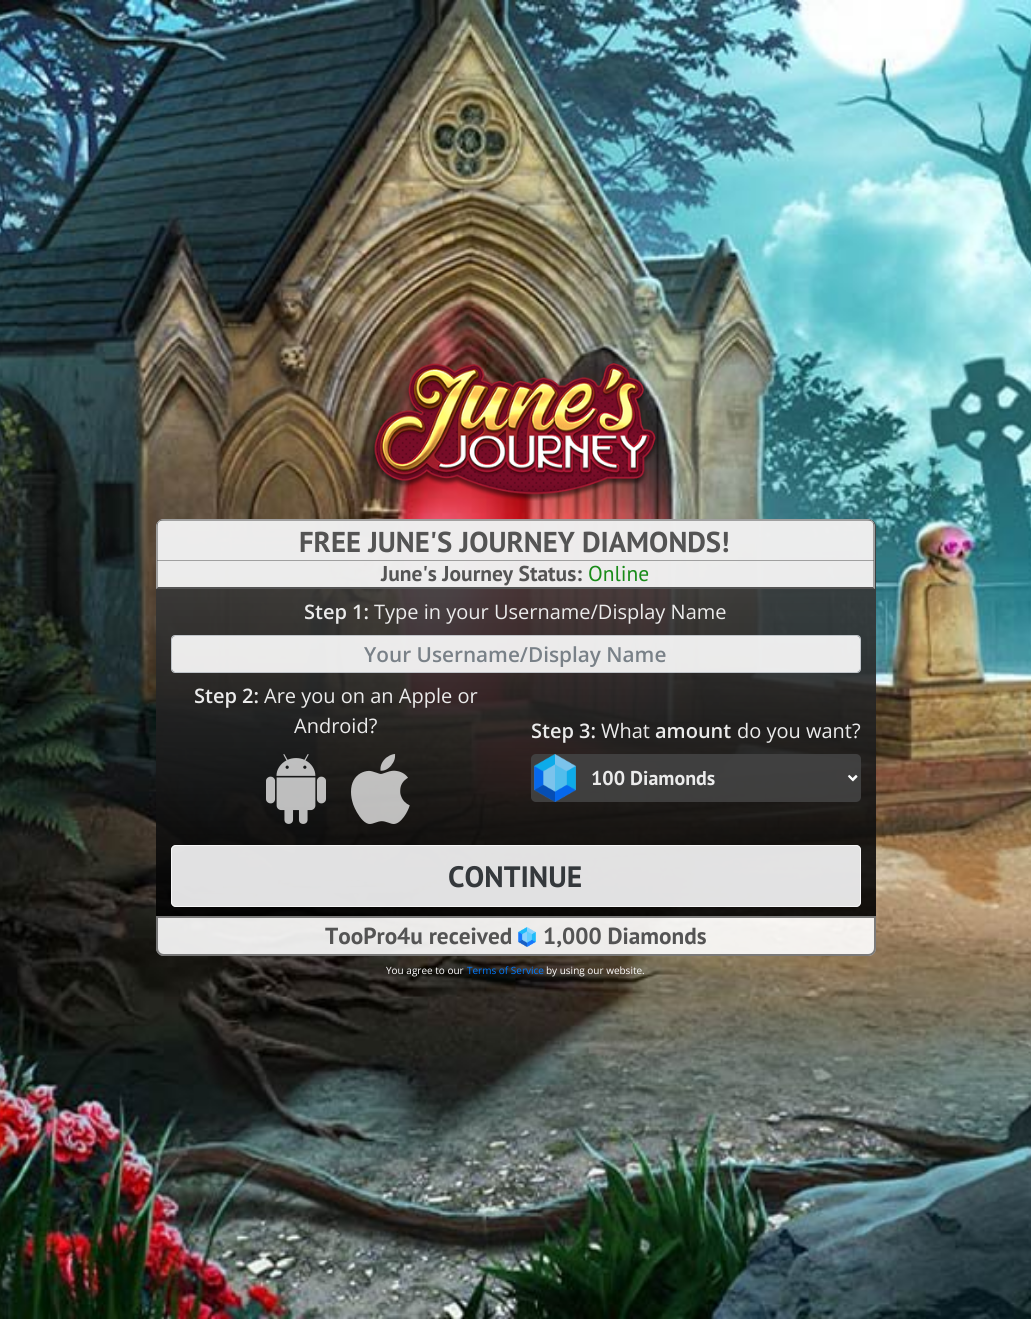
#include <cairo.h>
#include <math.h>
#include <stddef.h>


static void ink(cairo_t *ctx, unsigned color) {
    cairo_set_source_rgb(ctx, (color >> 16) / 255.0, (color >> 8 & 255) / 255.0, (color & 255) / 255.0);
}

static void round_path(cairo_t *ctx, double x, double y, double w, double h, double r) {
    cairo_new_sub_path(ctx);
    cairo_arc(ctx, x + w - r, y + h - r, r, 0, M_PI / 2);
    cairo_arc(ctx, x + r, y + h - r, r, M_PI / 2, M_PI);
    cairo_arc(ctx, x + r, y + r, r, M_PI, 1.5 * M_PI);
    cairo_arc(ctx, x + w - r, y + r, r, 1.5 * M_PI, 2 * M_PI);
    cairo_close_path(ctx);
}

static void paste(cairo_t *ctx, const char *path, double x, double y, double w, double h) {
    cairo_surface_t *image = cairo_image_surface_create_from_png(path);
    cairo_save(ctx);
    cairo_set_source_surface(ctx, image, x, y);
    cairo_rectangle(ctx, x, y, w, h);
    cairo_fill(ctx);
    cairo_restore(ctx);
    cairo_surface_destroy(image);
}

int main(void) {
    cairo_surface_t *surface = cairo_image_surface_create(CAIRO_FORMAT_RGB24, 1031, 1319);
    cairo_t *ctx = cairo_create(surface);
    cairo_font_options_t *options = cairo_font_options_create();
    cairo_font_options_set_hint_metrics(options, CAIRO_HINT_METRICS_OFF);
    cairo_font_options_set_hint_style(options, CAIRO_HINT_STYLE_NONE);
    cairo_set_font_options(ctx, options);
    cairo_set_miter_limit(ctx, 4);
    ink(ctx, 0xFFFFFF);
    cairo_paint(ctx);
    paste(ctx, "media/1.png", 0, 0, 1031, 1319);
    paste(ctx, "media/2.png", 373, 363, 284, 138);
    cairo_set_source_rgba(ctx, 1, 1, 1, 0.9);
    cairo_new_path(ctx);
    cairo_move_to(ctx, 164, 519);
    cairo_line_to(ctx, 867, 519);
    cairo_curve_to(ctx, 871.5, 519, 875, 522.5, 875, 527);
    cairo_line_to(ctx, 875, 561);
    cairo_line_to(ctx, 156, 561);
    cairo_line_to(ctx, 156, 527);
    cairo_curve_to(ctx, 156, 522.5, 159.5, 519, 164, 519);
    cairo_close_path(ctx);
    cairo_fill(ctx);
    cairo_new_path(ctx);
    cairo_move_to(ctx, 164, 519.5);
    cairo_line_to(ctx, 867, 519.5);
    cairo_curve_to(ctx, 871, 519.5, 874.5, 523, 874.5, 527);
    cairo_line_to(ctx, 874.5, 560.5);
    cairo_line_to(ctx, 156.5, 560.5);
    cairo_line_to(ctx, 156.5, 527);
    cairo_curve_to(ctx, 156.5, 523, 160, 519.5, 164, 519.5);
    cairo_close_path(ctx);
    cairo_set_source_rgba(ctx, 0.263, 0.263, 0.263, 0.45);
    cairo_set_line_width(ctx, 1);
    cairo_stroke(ctx);
    cairo_rectangle(ctx, 160, 520, 711, 1);
    cairo_fill(ctx);
    cairo_rectangle(ctx, 873, 523, 1, 38);
    cairo_fill(ctx);
    cairo_rectangle(ctx, 157, 523, 1, 38);
    cairo_fill(ctx);
    cairo_select_font_face(ctx, "PT Sans", CAIRO_FONT_SLANT_NORMAL, CAIRO_FONT_WEIGHT_BOLD);
    cairo_set_font_size(ctx, 28.75);
    ink(ctx, 0x545454);
    cairo_move_to(ctx, 299, 552);
    cairo_show_text(ctx, "FREE JUNE'S JOURNEY DIAMONDS!");
    cairo_set_source_rgba(ctx, 1, 1, 1, 0.9);
    cairo_rectangle(ctx, 156, 561, 719, 28);
    cairo_fill(ctx);
    ink(ctx, 0xA0A0A0);
    cairo_new_path(ctx);
    cairo_move_to(ctx, 875, 561);
    cairo_line_to(ctx, 875, 589);
    cairo_line_to(ctx, 873, 587);
    cairo_line_to(ctx, 873, 561);
    cairo_close_path(ctx);
    cairo_fill(ctx);
    cairo_set_source_rgba(ctx, 0.263, 0.263, 0.263, 0.9);
    cairo_new_path(ctx);
    cairo_move_to(ctx, 875, 589);
    cairo_line_to(ctx, 156, 589);
    cairo_line_to(ctx, 158, 587);
    cairo_line_to(ctx, 873, 587);
    cairo_close_path(ctx);
    cairo_fill(ctx);
    cairo_set_source_rgba(ctx, 0.263, 0.263, 0.263, 0.45);
    cairo_new_path(ctx);
    cairo_move_to(ctx, 156, 589);
    cairo_line_to(ctx, 156, 561);
    cairo_line_to(ctx, 158, 561);
    cairo_line_to(ctx, 158, 587);
    cairo_close_path(ctx);
    cairo_fill(ctx);
    cairo_set_font_size(ctx, 21.5);
    ink(ctx, 0x545454);
    cairo_move_to(ctx, 381, 581);
    cairo_show_text(ctx, "June's Journey Status:");
    cairo_select_font_face(ctx, "PT Sans", CAIRO_FONT_SLANT_NORMAL, CAIRO_FONT_WEIGHT_NORMAL);
    ink(ctx, 0x188B18);
    cairo_move_to(ctx, 588, 581);
    cairo_show_text(ctx, "Online");
    cairo_select_font_face(ctx, "Open Sans SemiBold", CAIRO_FONT_SLANT_NORMAL, CAIRO_FONT_WEIGHT_NORMAL);
    cairo_set_font_size(ctx, 20);
    ink(ctx, 0xEBEBEB);
    cairo_move_to(ctx, 304, 619);
    cairo_show_text(ctx, "Step 1:");
    cairo_select_font_face(ctx, "Open Sans", CAIRO_FONT_SLANT_NORMAL, CAIRO_FONT_WEIGHT_NORMAL);
    cairo_move_to(ctx, 374, 619);
    cairo_show_text(ctx, "Type in your Username/Display Name");
    cairo_set_source_rgba(ctx, 1, 1, 1, 0.9);
    round_path(ctx, 172, 636, 688, 36, 3);
    cairo_fill(ctx);
    round_path(ctx, 171.5, 635.5, 689, 37, 3.5);
    cairo_set_source_rgba(ctx, 0.808, 0.831, 0.855, 0.9);
    cairo_stroke(ctx);
    cairo_select_font_face(ctx, "Open Sans SemiBold", CAIRO_FONT_SLANT_NORMAL, CAIRO_FONT_WEIGHT_NORMAL);
    cairo_set_font_size(ctx, 20.75);
    ink(ctx, 0x798188);
    cairo_move_to(ctx, 364, 662);
    cairo_show_text(ctx, "Your Username/Display Name");
    cairo_set_font_size(ctx, 20);
    ink(ctx, 0xEBEBEB);
    cairo_move_to(ctx, 194, 703);
    cairo_show_text(ctx, "Step 2:");
    cairo_select_font_face(ctx, "Open Sans", CAIRO_FONT_SLANT_NORMAL, CAIRO_FONT_WEIGHT_NORMAL);
    cairo_move_to(ctx, 264, 703);
    cairo_show_text(ctx, "Are you on an Apple or");
    cairo_move_to(ctx, 294, 733);
    cairo_show_text(ctx, "Android?");
    paste(ctx, "media/3.png", 266, 754, 60, 70);
    paste(ctx, "media/4.png", 351, 754, 59, 70);
    cairo_select_font_face(ctx, "Open Sans SemiBold", CAIRO_FONT_SLANT_NORMAL, CAIRO_FONT_WEIGHT_NORMAL);
    cairo_move_to(ctx, 531, 738);
    cairo_show_text(ctx, "Step 3:");
    cairo_select_font_face(ctx, "Open Sans", CAIRO_FONT_SLANT_NORMAL, CAIRO_FONT_WEIGHT_NORMAL);
    cairo_move_to(ctx, 601, 738);
    cairo_show_text(ctx, "What");
    cairo_select_font_face(ctx, "Open Sans SemiBold", CAIRO_FONT_SLANT_NORMAL, CAIRO_FONT_WEIGHT_NORMAL);
    cairo_move_to(ctx, 655, 738);
    cairo_show_text(ctx, "amount");
    cairo_select_font_face(ctx, "Open Sans", CAIRO_FONT_SLANT_NORMAL, CAIRO_FONT_WEIGHT_NORMAL);
    cairo_move_to(ctx, 737, 738);
    cairo_show_text(ctx, "do you want?");
    cairo_set_source_rgba(ctx, 0.263, 0.263, 0.263, 0.9);
    round_path(ctx, 531, 754, 330, 48, 5);
    cairo_fill(ctx);
    paste(ctx, "media/5.png", 534, 754, 324, 48);
    cairo_new_path(ctx);
    cairo_move_to(ctx, 848.5, 775.5);
    cairo_line_to(ctx, 852.5, 779.5);
    cairo_line_to(ctx, 856.5, 775.5);
    cairo_set_source_rgba(ctx, 1, 1, 1, 0.9);
    cairo_set_line_width(ctx, 2);
    cairo_stroke(ctx);
    cairo_select_font_face(ctx, "PT Sans", CAIRO_FONT_SLANT_NORMAL, CAIRO_FONT_WEIGHT_BOLD);
    ink(ctx, 0xEBEBEB);
    cairo_move_to(ctx, 591, 785);
    cairo_show_text(ctx, "100 Diamonds");
    cairo_set_source_rgba(ctx, 0.973, 0.976, 0.98, 0.9);
    round_path(ctx, 171, 845, 690, 62, 5);
    cairo_fill(ctx);
    round_path(ctx, 171.5, 845.5, 689, 61, 4.5);
    cairo_set_line_width(ctx, 1);
    cairo_stroke(ctx);
    cairo_set_font_size(ctx, 29.5);
    ink(ctx, 0x34383C);
    cairo_move_to(ctx, 448, 887);
    cairo_show_text(ctx, "CONTINUE");
    cairo_set_source_rgba(ctx, 1, 1, 1, 0.9);
    cairo_new_path(ctx);
    cairo_move_to(ctx, 156, 916);
    cairo_line_to(ctx, 876, 916);
    cairo_line_to(ctx, 876, 948);
    cairo_curve_to(ctx, 876, 952.5, 872.5, 956, 868, 956);
    cairo_line_to(ctx, 164, 956);
    cairo_curve_to(ctx, 159.5, 956, 156, 952.5, 156, 948);
    cairo_close_path(ctx);
    cairo_fill(ctx);
    cairo_new_path(ctx);
    cairo_move_to(ctx, 157, 917);
    cairo_line_to(ctx, 875, 917);
    cairo_line_to(ctx, 875, 948);
    cairo_curve_to(ctx, 875, 952, 872, 955, 868, 955);
    cairo_line_to(ctx, 164, 955);
    cairo_curve_to(ctx, 160, 955, 157, 952, 157, 948);
    cairo_close_path(ctx);
    cairo_set_source_rgba(ctx, 0.263, 0.263, 0.263, 0.68);
    cairo_set_line_width(ctx, 2);
    cairo_stroke(ctx);
    cairo_set_font_size(ctx, 23.25);
    ink(ctx, 0x545454);
    cairo_move_to(ctx, 325, 944);
    cairo_show_text(ctx, "TooPro4u received");
    paste(ctx, "media/6.png", 518, 927, 18, 20);
    cairo_move_to(ctx, 543, 944);
    cairo_show_text(ctx, "1,000 Diamonds");
    cairo_select_font_face(ctx, "Open Sans", CAIRO_FONT_SLANT_NORMAL, CAIRO_FONT_WEIGHT_NORMAL);
    cairo_set_font_size(ctx, 10);
    ink(ctx, 0xFFFFFF);
    cairo_move_to(ctx, 386, 974);
    cairo_show_text(ctx, "You agree to our");
    ink(ctx, 0x007BFF);
    cairo_move_to(ctx, 467, 974);
    cairo_show_text(ctx, "Terms of Service");
    ink(ctx, 0xFFFFFF);
    cairo_move_to(ctx, 546, 974);
    cairo_show_text(ctx, "by using our website.");
    cairo_surface_write_to_png(surface, "image.png");
    cairo_font_options_destroy(options);
    cairo_destroy(ctx);
    cairo_surface_destroy(surface);
    return 0;
}
